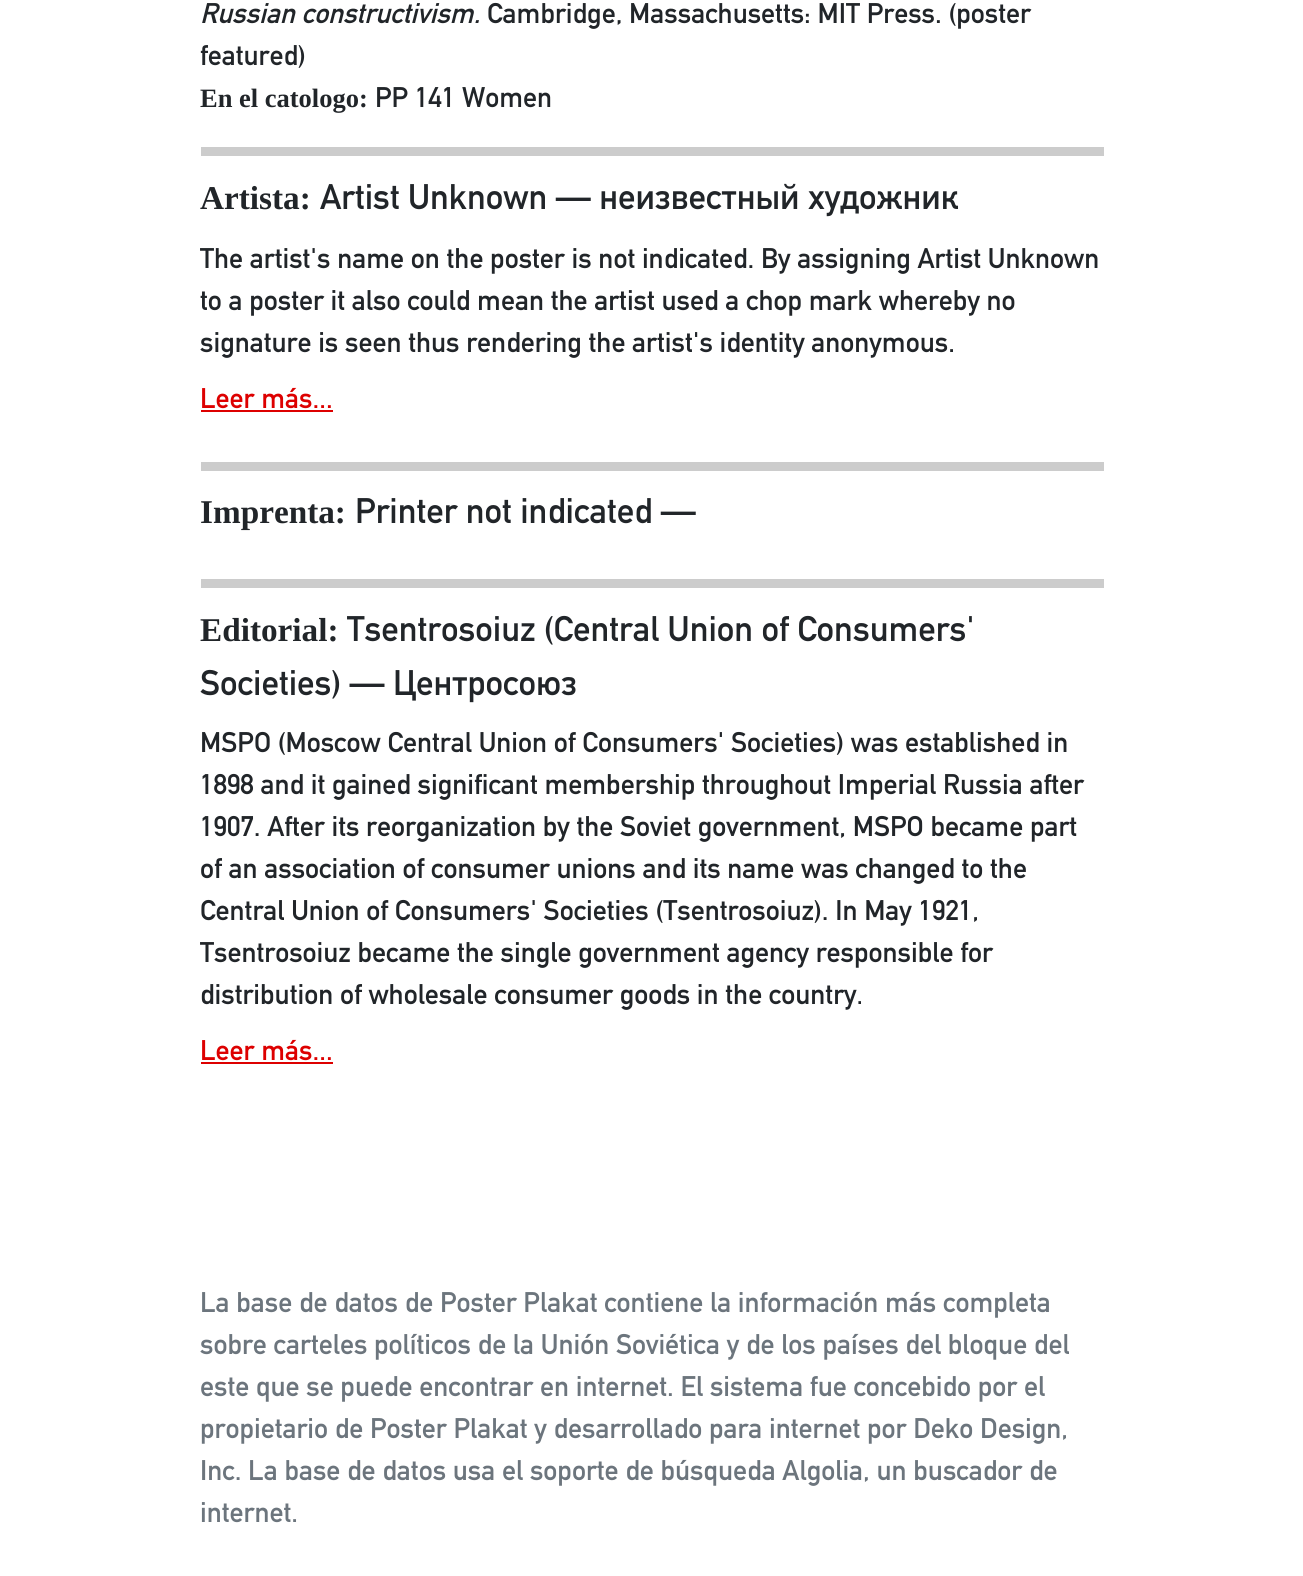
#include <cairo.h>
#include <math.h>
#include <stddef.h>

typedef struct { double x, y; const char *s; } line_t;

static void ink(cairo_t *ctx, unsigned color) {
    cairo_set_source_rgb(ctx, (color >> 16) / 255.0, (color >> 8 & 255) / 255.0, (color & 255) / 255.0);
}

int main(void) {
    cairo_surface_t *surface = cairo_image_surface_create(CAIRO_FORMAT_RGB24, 1303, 1576);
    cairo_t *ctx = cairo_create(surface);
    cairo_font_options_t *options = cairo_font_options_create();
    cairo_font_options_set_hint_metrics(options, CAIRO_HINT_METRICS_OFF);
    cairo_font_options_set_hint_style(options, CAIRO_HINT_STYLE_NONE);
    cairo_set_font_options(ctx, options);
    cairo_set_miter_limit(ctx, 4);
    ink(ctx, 0xFFFFFF);
    cairo_paint(ctx);
    cairo_select_font_face(ctx, "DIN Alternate", CAIRO_FONT_SLANT_ITALIC, CAIRO_FONT_WEIGHT_BOLD);
    cairo_set_font_size(ctx, 28);
    ink(ctx, 0x212529);
    cairo_move_to(ctx, 200, 23);
    cairo_show_text(ctx, "Russian constructivism.");
    cairo_select_font_face(ctx, "DIN Alternate", CAIRO_FONT_SLANT_NORMAL, CAIRO_FONT_WEIGHT_BOLD);
    cairo_move_to(ctx, 487, 23);
    cairo_show_text(ctx, "Cambridge, Massachusetts: MIT Press. (poster");
    cairo_move_to(ctx, 200, 65);
    cairo_show_text(ctx, "featured)");
    cairo_select_font_face(ctx, "Liberation Serif", CAIRO_FONT_SLANT_NORMAL, CAIRO_FONT_WEIGHT_BOLD);
    cairo_set_font_size(ctx, 26.5);
    cairo_move_to(ctx, 200, 107);
    cairo_show_text(ctx, "En el catologo:");
    cairo_select_font_face(ctx, "DIN Alternate", CAIRO_FONT_SLANT_NORMAL, CAIRO_FONT_WEIGHT_BOLD);
    cairo_set_font_size(ctx, 28);
    cairo_move_to(ctx, 375, 107);
    cairo_show_text(ctx, "PP 141 Women");
    ink(ctx, 0xCCCCCC);
    cairo_rectangle(ctx, 201, 147, 903, 9);
    cairo_fill(ctx);
    cairo_select_font_face(ctx, "Liberation Serif", CAIRO_FONT_SLANT_NORMAL, CAIRO_FONT_WEIGHT_BOLD);
    cairo_set_font_size(ctx, 33.25);
    ink(ctx, 0x212529);
    cairo_move_to(ctx, 200, 209);
    cairo_show_text(ctx, "Artista:");
    cairo_select_font_face(ctx, "DIN Alternate", CAIRO_FONT_SLANT_NORMAL, CAIRO_FONT_WEIGHT_BOLD);
    cairo_set_font_size(ctx, 35);
    cairo_move_to(ctx, 320, 209);
    cairo_show_text(ctx, "Artist Unknown — неизвестный художник");
    cairo_set_font_size(ctx, 28);
    {
        static const line_t items[] = {
            {200, 268, "The artist's name on the poster is not indicated. By assigning Artist Unknown"},
            {200, 310, "to a poster it also could mean the artist used a chop mark whereby no"},
            {200, 352, "signature is seen thus rendering the artist's identity anonymous."},
        };
        for (size_t i = 0; i < sizeof items / sizeof *items; i++) {
            cairo_move_to(ctx, items[i].x, items[i].y);
            cairo_show_text(ctx, items[i].s);
        }
    }
    ink(ctx, 0xDD0000);
    cairo_move_to(ctx, 200, 408);
    cairo_show_text(ctx, "Leer más...");
    cairo_rectangle(ctx, 201, 410, 132, 2);
    cairo_fill(ctx);
    ink(ctx, 0xCCCCCC);
    cairo_rectangle(ctx, 201, 462, 903, 9);
    cairo_fill(ctx);
    cairo_select_font_face(ctx, "Liberation Serif", CAIRO_FONT_SLANT_NORMAL, CAIRO_FONT_WEIGHT_BOLD);
    cairo_set_font_size(ctx, 33.25);
    ink(ctx, 0x212529);
    cairo_move_to(ctx, 200, 523);
    cairo_show_text(ctx, "Imprenta:");
    cairo_select_font_face(ctx, "DIN Alternate", CAIRO_FONT_SLANT_NORMAL, CAIRO_FONT_WEIGHT_BOLD);
    cairo_set_font_size(ctx, 35);
    cairo_move_to(ctx, 355, 523);
    cairo_show_text(ctx, "Printer not indicated —");
    ink(ctx, 0xCCCCCC);
    cairo_rectangle(ctx, 201, 579, 903, 9);
    cairo_fill(ctx);
    cairo_select_font_face(ctx, "Liberation Serif", CAIRO_FONT_SLANT_NORMAL, CAIRO_FONT_WEIGHT_BOLD);
    cairo_set_font_size(ctx, 33.25);
    ink(ctx, 0x212529);
    cairo_move_to(ctx, 200, 641);
    cairo_show_text(ctx, "Editorial:");
    cairo_select_font_face(ctx, "DIN Alternate", CAIRO_FONT_SLANT_NORMAL, CAIRO_FONT_WEIGHT_BOLD);
    cairo_set_font_size(ctx, 35);
    cairo_move_to(ctx, 347, 641);
    cairo_show_text(ctx, "Tsentrosoiuz (Central Union of Consumers'");
    cairo_move_to(ctx, 200, 695);
    cairo_show_text(ctx, "Societies) — Центросоюз");
    cairo_set_font_size(ctx, 28);
    {
        static const line_t items[] = {
            {200, 752, "MSPO (Moscow Central Union of Consumers' Societies) was established in"},
            {200, 794, "1898 and it gained significant membership throughout Imperial Russia after"},
            {200, 836, "1907. After its reorganization by the Soviet government, MSPO became part"},
            {200, 878, "of an association of consumer unions and its name was changed to the"},
            {200, 920, "Central Union of Consumers' Societies (Tsentrosoiuz). In May 1921,"},
            {200, 962, "Tsentrosoiuz became the single government agency responsible for"},
            {200, 1004, "distribution of wholesale consumer goods in the country."},
        };
        for (size_t i = 0; i < sizeof items / sizeof *items; i++) {
            cairo_move_to(ctx, items[i].x, items[i].y);
            cairo_show_text(ctx, items[i].s);
        }
    }
    ink(ctx, 0xDD0000);
    cairo_move_to(ctx, 200, 1060);
    cairo_show_text(ctx, "Leer más...");
    cairo_rectangle(ctx, 201, 1062, 132, 2);
    cairo_fill(ctx);
    ink(ctx, 0x6C757D);
    {
        static const line_t items[] = {
            {200, 1312, "La base de datos de Poster Plakat contiene la información más completa"},
            {200, 1354, "sobre carteles políticos de la Unión Soviética y de los países del bloque del"},
            {200, 1396, "este que se puede encontrar en internet. El sistema fue concebido por el"},
            {200, 1438, "propietario de Poster Plakat y desarrollado para internet por Deko Design,"},
            {200, 1480, "Inc. La base de datos usa el soporte de búsqueda Algolia, un buscador de"},
            {200, 1522, "internet."},
        };
        for (size_t i = 0; i < sizeof items / sizeof *items; i++) {
            cairo_move_to(ctx, items[i].x, items[i].y);
            cairo_show_text(ctx, items[i].s);
        }
    }
    cairo_surface_write_to_png(surface, "image.png");
    cairo_font_options_destroy(options);
    cairo_destroy(ctx);
    cairo_surface_destroy(surface);
    return 0;
}
